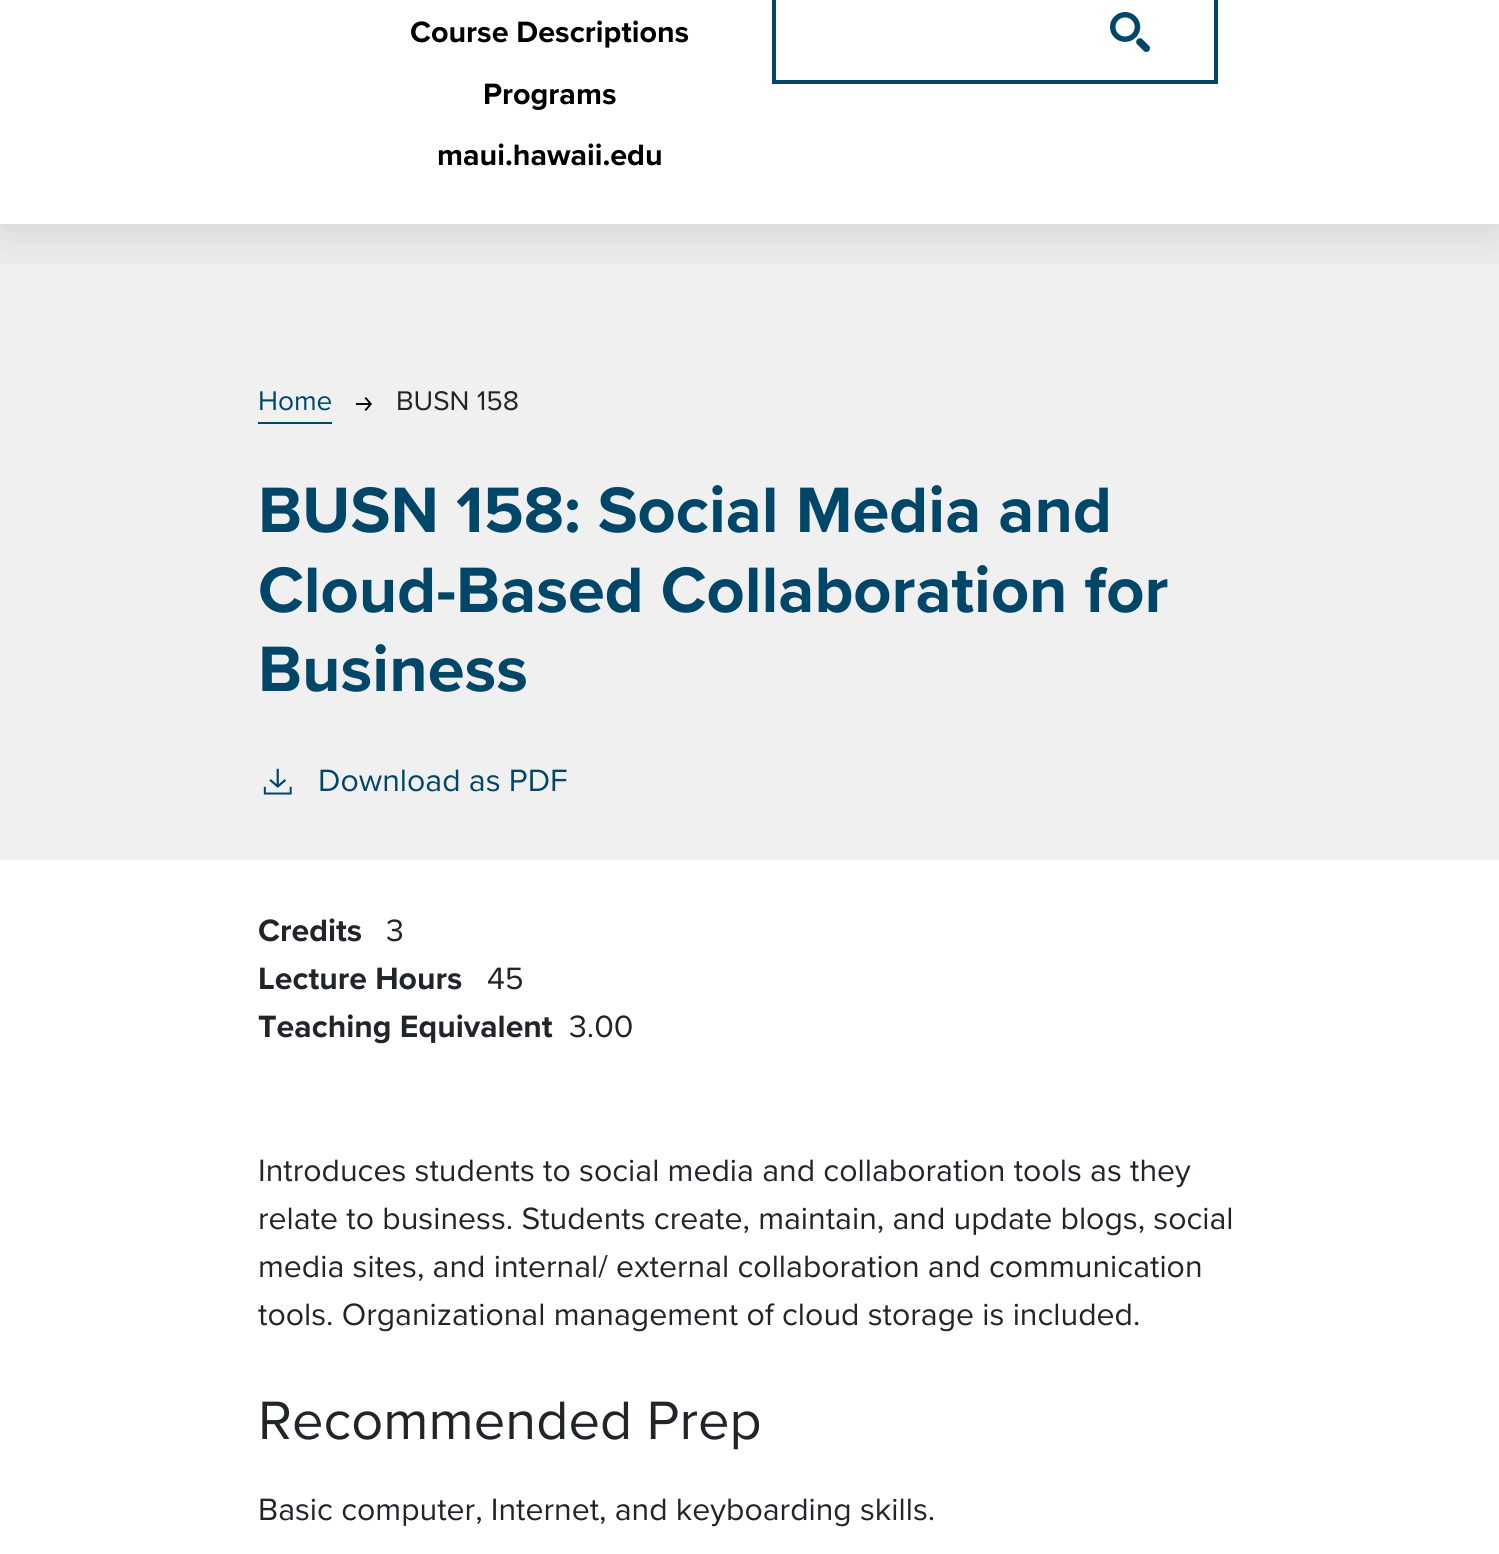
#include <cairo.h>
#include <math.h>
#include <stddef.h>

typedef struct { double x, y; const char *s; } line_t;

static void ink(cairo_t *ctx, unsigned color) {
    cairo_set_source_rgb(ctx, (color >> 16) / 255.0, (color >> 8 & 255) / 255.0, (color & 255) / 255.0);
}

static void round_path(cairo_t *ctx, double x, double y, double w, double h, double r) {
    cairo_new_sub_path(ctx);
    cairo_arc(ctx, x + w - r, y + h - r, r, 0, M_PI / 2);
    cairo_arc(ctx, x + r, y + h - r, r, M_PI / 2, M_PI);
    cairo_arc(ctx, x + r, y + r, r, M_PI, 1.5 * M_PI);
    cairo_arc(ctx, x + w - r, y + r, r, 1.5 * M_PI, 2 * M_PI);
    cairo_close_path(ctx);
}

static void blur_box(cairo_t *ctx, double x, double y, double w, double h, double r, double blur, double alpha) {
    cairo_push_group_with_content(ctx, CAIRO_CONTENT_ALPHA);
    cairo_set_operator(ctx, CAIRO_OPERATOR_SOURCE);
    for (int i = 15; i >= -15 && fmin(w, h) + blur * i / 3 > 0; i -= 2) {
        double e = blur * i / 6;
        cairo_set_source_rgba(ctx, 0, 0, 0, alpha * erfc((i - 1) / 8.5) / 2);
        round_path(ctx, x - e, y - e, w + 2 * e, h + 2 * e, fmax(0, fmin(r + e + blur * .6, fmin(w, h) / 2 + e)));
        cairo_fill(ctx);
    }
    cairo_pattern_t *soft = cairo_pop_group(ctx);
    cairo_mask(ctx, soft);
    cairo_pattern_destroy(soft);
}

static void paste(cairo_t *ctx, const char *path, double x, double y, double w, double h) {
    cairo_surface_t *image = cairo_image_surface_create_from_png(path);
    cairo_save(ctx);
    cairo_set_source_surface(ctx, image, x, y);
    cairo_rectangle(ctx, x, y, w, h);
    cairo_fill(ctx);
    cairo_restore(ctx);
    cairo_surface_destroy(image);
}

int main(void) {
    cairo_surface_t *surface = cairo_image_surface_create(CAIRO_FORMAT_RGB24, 1499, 1554);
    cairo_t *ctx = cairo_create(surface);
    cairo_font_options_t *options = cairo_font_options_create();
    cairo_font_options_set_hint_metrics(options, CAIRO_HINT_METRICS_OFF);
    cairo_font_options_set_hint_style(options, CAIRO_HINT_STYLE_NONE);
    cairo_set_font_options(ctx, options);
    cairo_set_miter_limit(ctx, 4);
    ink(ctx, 0xFFFFFF);
    cairo_paint(ctx);
    ink(ctx, 0xF0F0F0);
    cairo_rectangle(ctx, 0, 224, 1499, 636);
    cairo_fill(ctx);
    cairo_save(ctx);
    cairo_rectangle(ctx, 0, 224, 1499, 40);
    cairo_clip(ctx);
    ink(ctx, 0x000000);
    blur_box(ctx, 0, -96, 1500, 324, 0, 32, 0.15);
    cairo_restore(ctx);
    cairo_select_font_face(ctx, "Proxima Nova", CAIRO_FONT_SLANT_NORMAL, CAIRO_FONT_WEIGHT_BOLD);
    cairo_set_font_size(ctx, 30.5);
    ink(ctx, 0x000000);
    {
        static const line_t items[] = {
            {410, 42, "Course Descriptions"},
            {483, 104, "Programs"},
            {437, 165, "maui.hawaii.edu"},
        };
        for (size_t i = 0; i < sizeof items / sizeof *items; i++) {
            cairo_move_to(ctx, items[i].x, items[i].y);
            cairo_show_text(ctx, items[i].s);
        }
    }
    cairo_rectangle(ctx, 774, -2, 442, 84);
    ink(ctx, 0x004668);
    cairo_set_line_width(ctx, 4);
    cairo_stroke(ctx);
    paste(ctx, "media/1.png", 1110, 12, 40, 40);
    cairo_select_font_face(ctx, "Proxima Nova", CAIRO_FONT_SLANT_NORMAL, CAIRO_FONT_WEIGHT_NORMAL);
    cairo_set_font_size(ctx, 28);
    cairo_move_to(ctx, 258, 410);
    cairo_show_text(ctx, "Home");
    cairo_rectangle(ctx, 258, 422, 74, 2);
    cairo_fill(ctx);
    paste(ctx, "media/2.png", 356, 397, 16, 14);
    ink(ctx, 0x212529);
    cairo_move_to(ctx, 396, 410);
    cairo_show_text(ctx, "BUSN 158");
    cairo_select_font_face(ctx, "Proxima Nova", CAIRO_FONT_SLANT_NORMAL, CAIRO_FONT_WEIGHT_BOLD);
    cairo_set_font_size(ctx, 66.5);
    ink(ctx, 0x004668);
    {
        static const line_t items[] = {
            {258, 532, "BUSN 158: Social Media and"},
            {258, 612, "Cloud-Based Collaboration for"},
            {258, 691, "Business"},
        };
        for (size_t i = 0; i < sizeof items / sizeof *items; i++) {
            cairo_move_to(ctx, items[i].x, items[i].y);
            cairo_show_text(ctx, items[i].s);
        }
    }
    paste(ctx, "media/3.png", 263, 768, 29, 27);
    cairo_select_font_face(ctx, "Proxima Nova", CAIRO_FONT_SLANT_NORMAL, CAIRO_FONT_WEIGHT_NORMAL);
    cairo_set_font_size(ctx, 32);
    cairo_move_to(ctx, 318, 791);
    cairo_show_text(ctx, "Download as PDF");
    cairo_select_font_face(ctx, "Proxima Nova", CAIRO_FONT_SLANT_NORMAL, CAIRO_FONT_WEIGHT_BOLD);
    ink(ctx, 0x212529);
    cairo_move_to(ctx, 258, 941);
    cairo_show_text(ctx, "Credits");
    cairo_select_font_face(ctx, "Proxima Nova", CAIRO_FONT_SLANT_NORMAL, CAIRO_FONT_WEIGHT_NORMAL);
    cairo_move_to(ctx, 386, 941);
    cairo_show_text(ctx, "3");
    cairo_select_font_face(ctx, "Proxima Nova", CAIRO_FONT_SLANT_NORMAL, CAIRO_FONT_WEIGHT_BOLD);
    cairo_move_to(ctx, 258, 989);
    cairo_show_text(ctx, "Lecture Hours");
    cairo_select_font_face(ctx, "Proxima Nova", CAIRO_FONT_SLANT_NORMAL, CAIRO_FONT_WEIGHT_NORMAL);
    cairo_move_to(ctx, 487, 989);
    cairo_show_text(ctx, "45");
    cairo_select_font_face(ctx, "Proxima Nova", CAIRO_FONT_SLANT_NORMAL, CAIRO_FONT_WEIGHT_BOLD);
    cairo_move_to(ctx, 258, 1037);
    cairo_show_text(ctx, "Teaching Equivalent");
    cairo_select_font_face(ctx, "Proxima Nova", CAIRO_FONT_SLANT_NORMAL, CAIRO_FONT_WEIGHT_NORMAL);
    {
        static const line_t items[] = {
            {569, 1037, "3.00"},
            {258, 1181, "Introduces students to social media and collaboration tools as they"},
            {258, 1229, "relate to business. Students create, maintain, and update blogs, social"},
            {258, 1277, "media sites, and internal/ external collaboration and communication"},
            {258, 1325, "tools. Organizational management of cloud storage is included."},
        };
        for (size_t i = 0; i < sizeof items / sizeof *items; i++) {
            cairo_move_to(ctx, items[i].x, items[i].y);
            cairo_show_text(ctx, items[i].s);
        }
    }
    cairo_set_font_size(ctx, 56);
    cairo_move_to(ctx, 258, 1439);
    cairo_show_text(ctx, "Recommended Prep");
    cairo_set_font_size(ctx, 32);
    cairo_move_to(ctx, 258, 1520);
    cairo_show_text(ctx, "Basic computer, Internet, and keyboarding skills.");
    cairo_surface_write_to_png(surface, "image.png");
    cairo_font_options_destroy(options);
    cairo_destroy(ctx);
    cairo_surface_destroy(surface);
    return 0;
}
